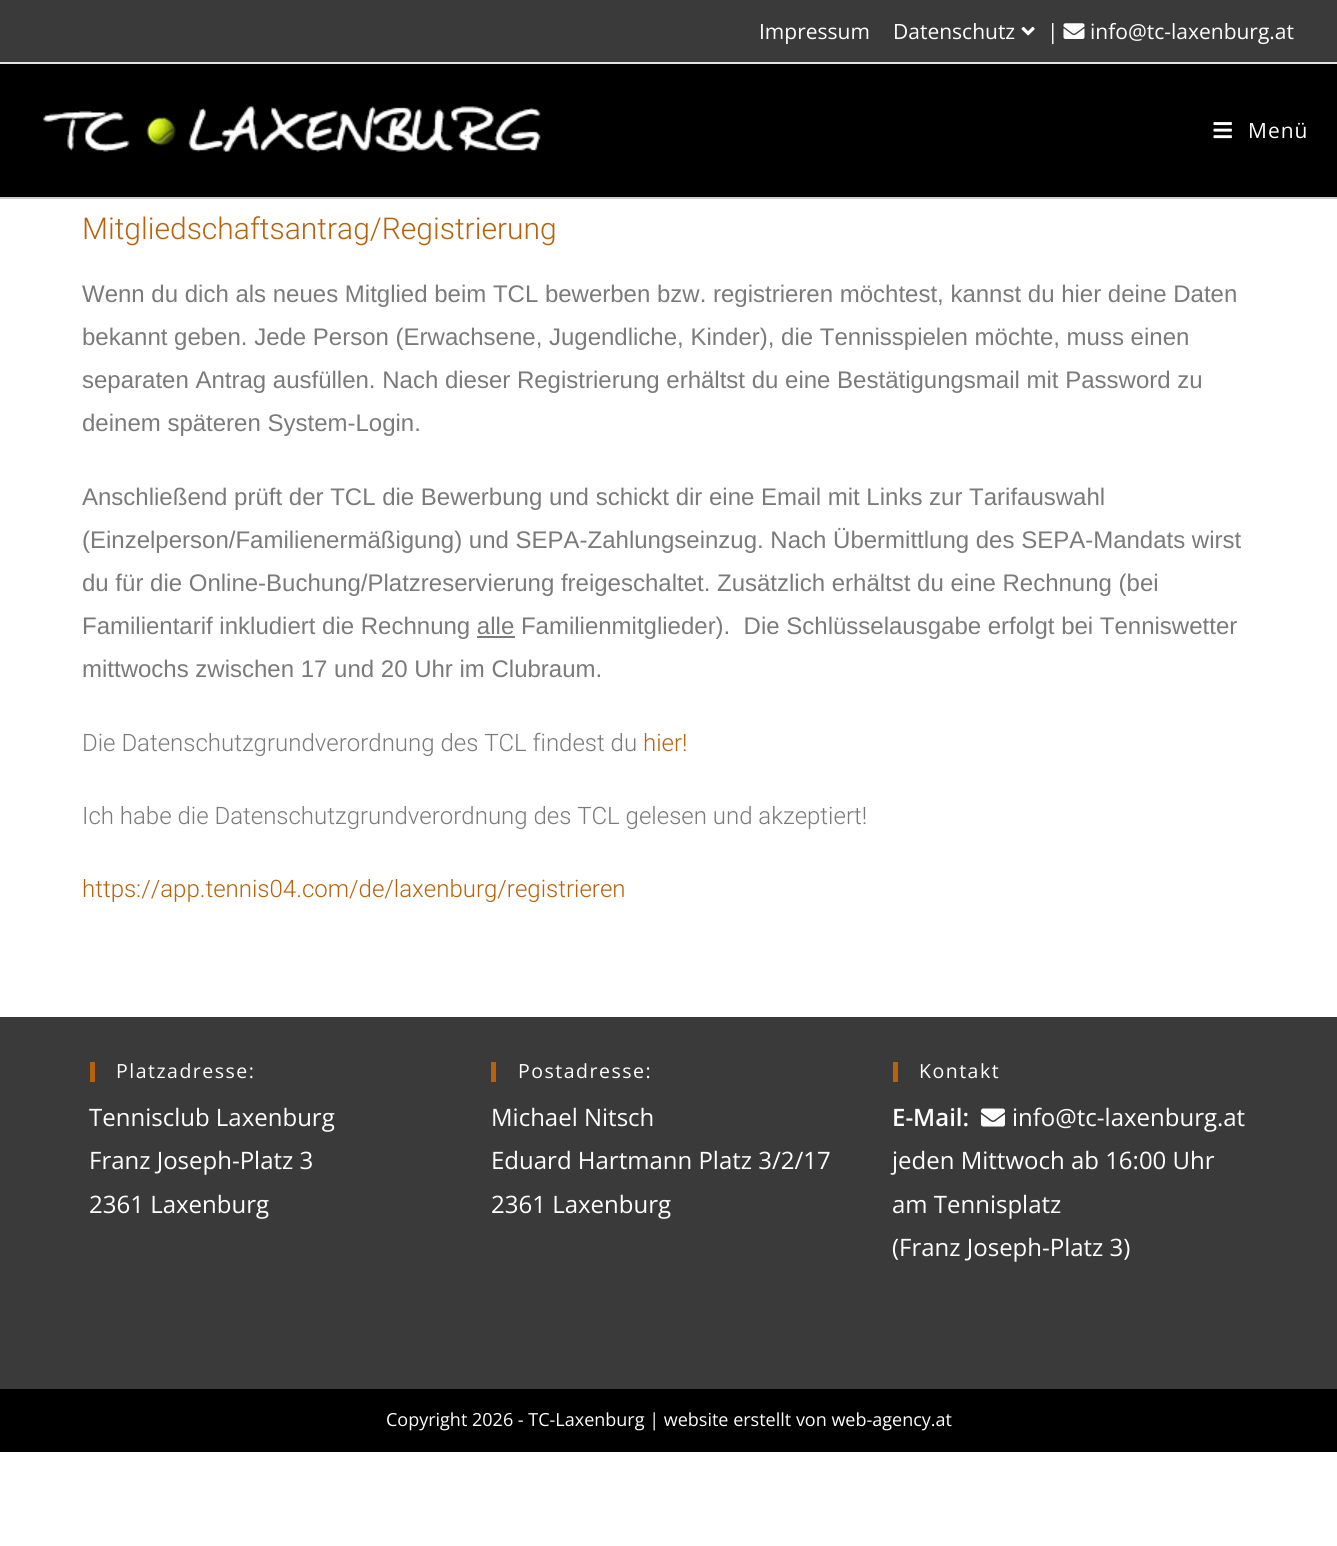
#include <cairo.h>
#include <math.h>
#include <stddef.h>

typedef struct { double x, y; const char *s; } line_t;

static void ink(cairo_t *ctx, unsigned color) {
    cairo_set_source_rgb(ctx, (color >> 16) / 255.0, (color >> 8 & 255) / 255.0, (color & 255) / 255.0);
}

static void write_spaced(cairo_t *ctx, double x, double y, const char *s, double letter, double word) {
    cairo_move_to(ctx, x, y);
    while (*s) {
        char ch[5] = {0};
        int n = 0;
        do ch[n++] = *s++; while ((*s & 0xC0) == 0x80);
        cairo_show_text(ctx, ch);
        cairo_rel_move_to(ctx, letter + word * (*ch == ' '), 0);
    }
}

static void paste(cairo_t *ctx, const char *path, double x, double y, double w, double h) {
    cairo_surface_t *image = cairo_image_surface_create_from_png(path);
    cairo_save(ctx);
    cairo_set_source_surface(ctx, image, x, y);
    cairo_rectangle(ctx, x, y, w, h);
    cairo_fill(ctx);
    cairo_restore(ctx);
    cairo_surface_destroy(image);
}

int main(void) {
    cairo_surface_t *surface = cairo_image_surface_create(CAIRO_FORMAT_RGB24, 1337, 1546);
    cairo_t *ctx = cairo_create(surface);
    cairo_font_options_t *options = cairo_font_options_create();
    cairo_font_options_set_hint_metrics(options, CAIRO_HINT_METRICS_OFF);
    cairo_font_options_set_hint_style(options, CAIRO_HINT_STYLE_NONE);
    cairo_set_font_options(ctx, options);
    cairo_set_miter_limit(ctx, 4);
    ink(ctx, 0xFFFFFF);
    cairo_paint(ctx);
    ink(ctx, 0x3A3A3A);
    cairo_rectangle(ctx, 0, 0, 1337, 62);
    cairo_fill(ctx);
    ink(ctx, 0xE3E2E0);
    cairo_rectangle(ctx, 0, 62, 1337, 2);
    cairo_fill(ctx);
    cairo_select_font_face(ctx, "Open Sans", CAIRO_FONT_SLANT_NORMAL, CAIRO_FONT_WEIGHT_NORMAL);
    cairo_set_font_size(ctx, 21);
    ink(ctx, 0xFFFFFF);
    cairo_move_to(ctx, 759, 39);
    cairo_show_text(ctx, "Impressum");
    cairo_move_to(ctx, 893, 39);
    cairo_show_text(ctx, "Datenschutz");
    paste(ctx, "media/1.png", 1021, 26, 14, 10);
    cairo_move_to(ctx, 1047, 39);
    cairo_show_text(ctx, "|");
    paste(ctx, "media/2.png", 1063, 23, 22, 16);
    cairo_move_to(ctx, 1090, 39);
    cairo_show_text(ctx, "info@tc-laxenburg.at");
    ink(ctx, 0x000000);
    cairo_rectangle(ctx, 0, 64, 1337, 133);
    cairo_fill(ctx);
    ink(ctx, 0xCCCCCC);
    cairo_rectangle(ctx, 0, 197, 1337, 2);
    cairo_fill(ctx);
    paste(ctx, "media/3.png", 43, 106, 498, 46);
    paste(ctx, "media/4.png", 1213, 122, 19, 17);
    ink(ctx, 0xFFFFFF);
    write_spaced(ctx, 1248, 138, "Menü", 1, 0);
    cairo_select_font_face(ctx, "Roboto Light", CAIRO_FONT_SLANT_NORMAL, CAIRO_FONT_WEIGHT_NORMAL);
    cairo_set_font_size(ctx, 30);
    ink(ctx, 0xB8630C);
    cairo_move_to(ctx, 82, 239);
    cairo_show_text(ctx, "Mitgliedschaftsantrag/Registrierung");
    cairo_select_font_face(ctx, "Liberation Sans", CAIRO_FONT_SLANT_NORMAL, CAIRO_FONT_WEIGHT_NORMAL);
    cairo_set_font_size(ctx, 24);
    ink(ctx, 0x7A7A7A);
    {
        static const line_t items[] = {
            {82, 302, "Wenn du dich als neues Mitglied beim TCL bewerben bzw. registrieren möchtest, kannst du hier deine Daten"},
            {82, 345, "bekannt geben. Jede Person (Erwachsene, Jugendliche, Kinder), die Tennisspielen möchte, muss einen"},
            {82, 388, "separaten Antrag ausfüllen. Nach dieser Registrierung erhältst du eine Bestätigungsmail mit Password zu"},
            {82, 431, "deinem späteren System-Login."},
            {82, 505, "Anschließend prüft der TCL die Bewerbung und schickt dir eine Email mit Links zur Tarifauswahl"},
            {82, 548, "(Einzelperson/Familienermäßigung) und SEPA-Zahlungseinzug. Nach Übermittlung des SEPA-Mandats wirst"},
            {82, 591, "du für die Online-Buchung/Platzreservierung freigeschaltet. Zusätzlich erhältst du eine Rechnung (bei"},
            {82, 634, "Familientarif inkludiert die Rechnung alle Familienmitglieder).  Die Schlüsselausgabe erfolgt bei Tenniswetter"},
        };
        for (size_t i = 0; i < sizeof items / sizeof *items; i++) {
            cairo_move_to(ctx, items[i].x, items[i].y);
            cairo_show_text(ctx, items[i].s);
        }
    }
    cairo_rectangle(ctx, 477, 636, 38, 2);
    cairo_fill(ctx);
    cairo_move_to(ctx, 82, 677);
    cairo_show_text(ctx, "mittwochs zwischen 17 und 20 Uhr im Clubraum.");
    cairo_select_font_face(ctx, "Roboto Light", CAIRO_FONT_SLANT_NORMAL, CAIRO_FONT_WEIGHT_NORMAL);
    cairo_move_to(ctx, 82, 751);
    cairo_show_text(ctx, "Die Datenschutzgrundverordnung des TCL findest du");
    ink(ctx, 0xB8630C);
    cairo_move_to(ctx, 643, 751);
    cairo_show_text(ctx, "hier!");
    ink(ctx, 0x7A7A7A);
    cairo_move_to(ctx, 82, 824);
    cairo_show_text(ctx, "Ich habe die Datenschutzgrundverordnung des TCL gelesen und akzeptiert!");
    ink(ctx, 0xB8630C);
    cairo_move_to(ctx, 82, 897);
    cairo_show_text(ctx, "https://app.tennis04.com/de/laxenburg/registrieren");
    ink(ctx, 0x3A3A3A);
    cairo_rectangle(ctx, 0, 1017, 1337, 372);
    cairo_fill(ctx);
    ink(ctx, 0xB8630C);
    cairo_rectangle(ctx, 90, 1062, 5, 20);
    cairo_fill(ctx);
    cairo_select_font_face(ctx, "Open Sans", CAIRO_FONT_SLANT_NORMAL, CAIRO_FONT_WEIGHT_NORMAL);
    cairo_set_font_size(ctx, 19.5);
    ink(ctx, 0xFFFFFF);
    write_spaced(ctx, 116, 1078, "Platzadresse:", 1.5, 0);
    cairo_set_font_size(ctx, 24);
    {
        static const line_t items[] = {
            {89, 1126, "Tennisclub Laxenburg"},
            {89, 1169, "Franz Joseph-Platz 3"},
            {89, 1213, "2361 Laxenburg"},
        };
        for (size_t i = 0; i < sizeof items / sizeof *items; i++) {
            cairo_move_to(ctx, items[i].x, items[i].y);
            cairo_show_text(ctx, items[i].s);
        }
    }
    ink(ctx, 0xB8630C);
    cairo_rectangle(ctx, 491, 1062, 5, 20);
    cairo_fill(ctx);
    cairo_set_font_size(ctx, 19.5);
    ink(ctx, 0xFFFFFF);
    write_spaced(ctx, 518, 1078, "Postadresse:", 1.5, 0);
    cairo_set_font_size(ctx, 24);
    {
        static const line_t items[] = {
            {491, 1126, "Michael Nitsch"},
            {491, 1169, "Eduard Hartmann Platz 3/2/17"},
            {491, 1213, "2361 Laxenburg"},
        };
        for (size_t i = 0; i < sizeof items / sizeof *items; i++) {
            cairo_move_to(ctx, items[i].x, items[i].y);
            cairo_show_text(ctx, items[i].s);
        }
    }
    ink(ctx, 0xB8630C);
    cairo_rectangle(ctx, 893, 1062, 5, 20);
    cairo_fill(ctx);
    cairo_set_font_size(ctx, 19.5);
    ink(ctx, 0xFFFFFF);
    write_spaced(ctx, 919, 1078, "Kontakt", 1.5, 0);
    cairo_select_font_face(ctx, "Open Sans SemiBold", CAIRO_FONT_SLANT_NORMAL, CAIRO_FONT_WEIGHT_NORMAL);
    cairo_set_font_size(ctx, 24);
    cairo_move_to(ctx, 892, 1126);
    cairo_show_text(ctx, "E-Mail:");
    paste(ctx, "media/5.png", 981, 1108, 24, 19);
    cairo_select_font_face(ctx, "Open Sans", CAIRO_FONT_SLANT_NORMAL, CAIRO_FONT_WEIGHT_NORMAL);
    {
        static const line_t items[] = {
            {1012, 1126, "info@tc-laxenburg.at"},
            {892, 1169, "jeden Mittwoch ab 16:00 Uhr"},
            {892, 1213, "am Tennisplatz"},
            {892, 1256, "(Franz Joseph-Platz 3)"},
        };
        for (size_t i = 0; i < sizeof items / sizeof *items; i++) {
            cairo_move_to(ctx, items[i].x, items[i].y);
            cairo_show_text(ctx, items[i].s);
        }
    }
    ink(ctx, 0x000000);
    cairo_rectangle(ctx, 0, 1389, 1337, 63);
    cairo_fill(ctx);
    cairo_set_font_size(ctx, 18);
    ink(ctx, 0xFFFFFF);
    cairo_move_to(ctx, 386, 1426);
    cairo_show_text(ctx, "Copyright 2026 - TC-Laxenburg | website erstellt von web-agency.at");
    cairo_surface_write_to_png(surface, "image.png");
    cairo_font_options_destroy(options);
    cairo_destroy(ctx);
    cairo_surface_destroy(surface);
    return 0;
}
